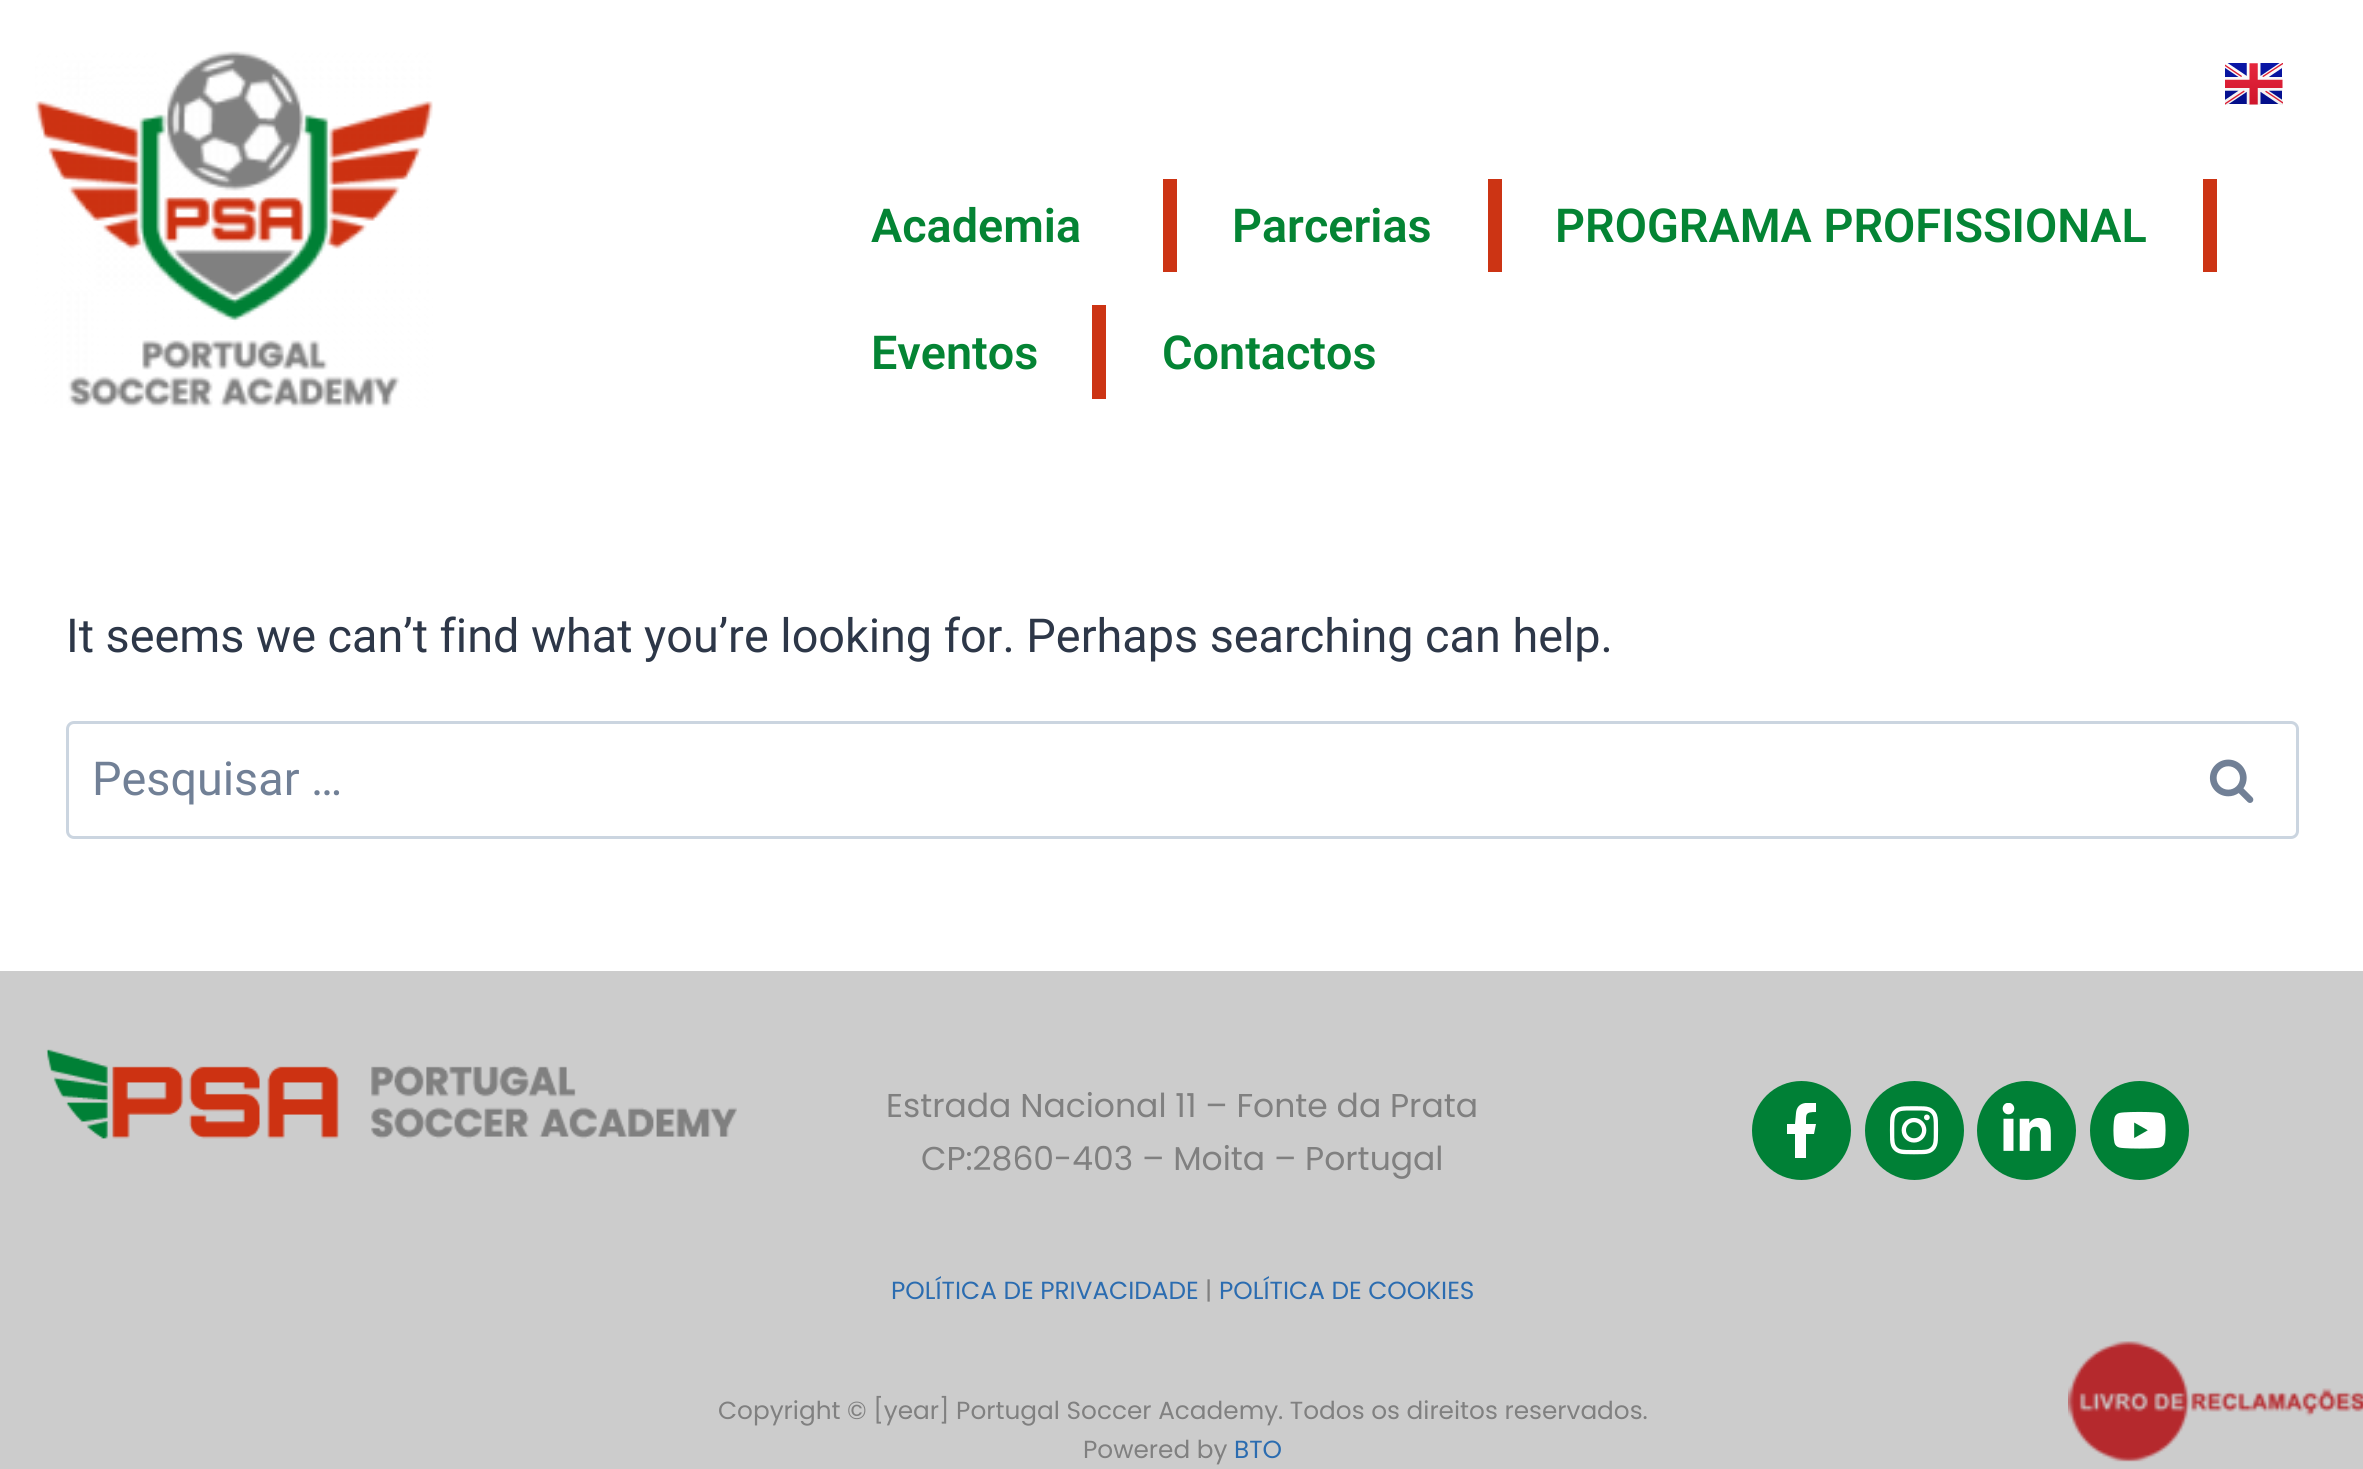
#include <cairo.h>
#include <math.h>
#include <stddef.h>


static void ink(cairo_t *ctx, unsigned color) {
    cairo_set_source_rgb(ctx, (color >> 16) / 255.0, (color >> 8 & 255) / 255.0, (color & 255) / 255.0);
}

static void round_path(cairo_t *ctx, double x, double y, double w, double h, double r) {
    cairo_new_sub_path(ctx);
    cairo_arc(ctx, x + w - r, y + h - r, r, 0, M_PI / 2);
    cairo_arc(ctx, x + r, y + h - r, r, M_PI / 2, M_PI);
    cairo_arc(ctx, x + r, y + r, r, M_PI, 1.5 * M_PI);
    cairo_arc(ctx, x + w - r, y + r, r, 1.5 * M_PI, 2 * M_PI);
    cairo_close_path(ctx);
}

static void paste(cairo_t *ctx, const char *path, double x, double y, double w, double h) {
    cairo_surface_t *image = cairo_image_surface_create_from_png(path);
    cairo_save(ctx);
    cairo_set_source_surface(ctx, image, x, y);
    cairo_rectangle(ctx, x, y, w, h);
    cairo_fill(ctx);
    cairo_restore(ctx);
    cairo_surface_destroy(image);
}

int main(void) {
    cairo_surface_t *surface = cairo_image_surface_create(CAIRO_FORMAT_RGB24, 2363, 1469);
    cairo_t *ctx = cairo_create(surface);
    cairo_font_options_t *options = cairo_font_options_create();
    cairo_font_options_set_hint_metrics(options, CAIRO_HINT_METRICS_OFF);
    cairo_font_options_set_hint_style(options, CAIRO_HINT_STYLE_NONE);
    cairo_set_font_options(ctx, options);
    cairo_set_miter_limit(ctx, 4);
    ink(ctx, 0xFFFFFF);
    cairo_paint(ctx);
    paste(ctx, "media/1.png", 35, 51, 398, 357);
    paste(ctx, "media/2.png", 2225, 63, 58, 42);
    cairo_select_font_face(ctx, "Roboto SemiBold", CAIRO_FONT_SLANT_NORMAL, CAIRO_FONT_WEIGHT_NORMAL);
    cairo_set_font_size(ctx, 46.75);
    ink(ctx, 0x048434);
    cairo_move_to(ctx, 871, 242);
    cairo_show_text(ctx, "Academia");
    ink(ctx, 0xCC3414);
    cairo_rectangle(ctx, 1163, 179, 14, 93);
    cairo_fill(ctx);
    ink(ctx, 0x048434);
    cairo_move_to(ctx, 1232, 242);
    cairo_show_text(ctx, "Parcerias");
    ink(ctx, 0xCC3414);
    cairo_rectangle(ctx, 1488, 179, 14, 93);
    cairo_fill(ctx);
    ink(ctx, 0x048434);
    cairo_move_to(ctx, 1555, 242);
    cairo_show_text(ctx, "PROGRAMA PROFISSIONAL");
    ink(ctx, 0xCC3414);
    cairo_rectangle(ctx, 2203, 179, 14, 93);
    cairo_fill(ctx);
    ink(ctx, 0x048434);
    cairo_move_to(ctx, 871, 369);
    cairo_show_text(ctx, "Eventos");
    ink(ctx, 0xCC3414);
    cairo_rectangle(ctx, 1092, 305, 14, 94);
    cairo_fill(ctx);
    ink(ctx, 0x048434);
    cairo_move_to(ctx, 1162, 369);
    cairo_show_text(ctx, "Contactos");
    cairo_select_font_face(ctx, "Roboto", CAIRO_FONT_SLANT_NORMAL, CAIRO_FONT_WEIGHT_NORMAL);
    ink(ctx, 0x2D3748);
    cairo_move_to(ctx, 66, 652);
    cairo_show_text(ctx, "It seems we can’t find what you’re looking for. Perhaps searching can help.");
    round_path(ctx, 67.5, 722.5, 2230, 115, 6.5);
    ink(ctx, 0xCBD5E0);
    cairo_set_line_width(ctx, 3);
    cairo_stroke(ctx);
    ink(ctx, 0x718096);
    cairo_move_to(ctx, 92, 795);
    cairo_show_text(ctx, "Pesquisar …");
    paste(ctx, "media/3.png", 2209, 759, 45, 44);
    ink(ctx, 0xCCCCCC);
    cairo_rectangle(ctx, 0, 971, 2363, 498);
    cairo_fill(ctx);
    paste(ctx, "media/4.png", 46, 1049, 691, 90);
    cairo_select_font_face(ctx, "Poppins", CAIRO_FONT_SLANT_NORMAL, CAIRO_FONT_WEIGHT_NORMAL);
    cairo_set_font_size(ctx, 33);
    ink(ctx, 0x808080);
    cairo_move_to(ctx, 886, 1117);
    cairo_show_text(ctx, "Estrada Nacional 11 – Fonte da Prata");
    cairo_move_to(ctx, 921, 1170);
    cairo_show_text(ctx, "CP:2860-403 – Moita – Portugal");
    ink(ctx, 0x008036);
    cairo_new_path(ctx);
    cairo_arc(ctx, 1801.5, 1130.5, 49.5, 0, 2 * M_PI);
    cairo_fill(ctx);
    cairo_save(ctx);
    cairo_rectangle(ctx, 1774, 1103, 55, 55);
    cairo_clip(ctx);
    ink(ctx, 0xFFFFFF);
    cairo_new_path(ctx);
    cairo_move_to(ctx, 1814, 1134);
    cairo_line_to(ctx, 1816, 1124);
    cairo_line_to(ctx, 1806, 1124);
    cairo_curve_to(ctx, 1806, 1114, 1805, 1112, 1816, 1112);
    cairo_line_to(ctx, 1816, 1103);
    cairo_curve_to(ctx, 1807, 1102, 1797, 1102, 1796, 1113);
    cairo_line_to(ctx, 1795, 1124);
    cairo_line_to(ctx, 1787, 1124);
    cairo_line_to(ctx, 1787, 1134);
    cairo_line_to(ctx, 1795, 1134);
    cairo_line_to(ctx, 1795, 1158);
    cairo_line_to(ctx, 1806, 1158);
    cairo_line_to(ctx, 1806, 1134);
    cairo_close_path(ctx);
    cairo_fill(ctx);
    cairo_restore(ctx);
    cairo_arc(ctx, 1914.5, 1130.5, 49.5, 0, 2 * M_PI);
    cairo_fill(ctx);
    paste(ctx, "media/5.png", 1889, 1106, 50, 49);
    cairo_arc(ctx, 2026.5, 1130.5, 49.5, 0, 2 * M_PI);
    cairo_fill(ctx);
    paste(ctx, "media/6.png", 2002, 1103, 49, 48);
    cairo_arc(ctx, 2139.5, 1130.5, 49.5, 0, 2 * M_PI);
    cairo_fill(ctx);
    paste(ctx, "media/7.png", 2113, 1111, 53, 38);
    cairo_set_font_size(ctx, 24.75);
    ink(ctx, 0x2B6CB0);
    cairo_move_to(ctx, 891, 1299);
    cairo_show_text(ctx, "POLÍTICA DE PRIVACIDADE");
    ink(ctx, 0x808080);
    cairo_move_to(ctx, 1205, 1299);
    cairo_show_text(ctx, "|");
    ink(ctx, 0x2B6CB0);
    cairo_move_to(ctx, 1219, 1299);
    cairo_show_text(ctx, "POLÍTICA DE COOKIES");
    ink(ctx, 0x808080);
    cairo_move_to(ctx, 718, 1419);
    cairo_show_text(ctx, "Copyright © [year] Portugal Soccer Academy. Todos os direitos reservados.");
    cairo_move_to(ctx, 1083, 1458);
    cairo_show_text(ctx, "Powered by");
    ink(ctx, 0x2B6CB0);
    cairo_move_to(ctx, 1234, 1458);
    cairo_show_text(ctx, "BTO");
    paste(ctx, "media/8.png", 2068, 1341, 295, 121);
    cairo_surface_write_to_png(surface, "image.png");
    cairo_font_options_destroy(options);
    cairo_destroy(ctx);
    cairo_surface_destroy(surface);
    return 0;
}
